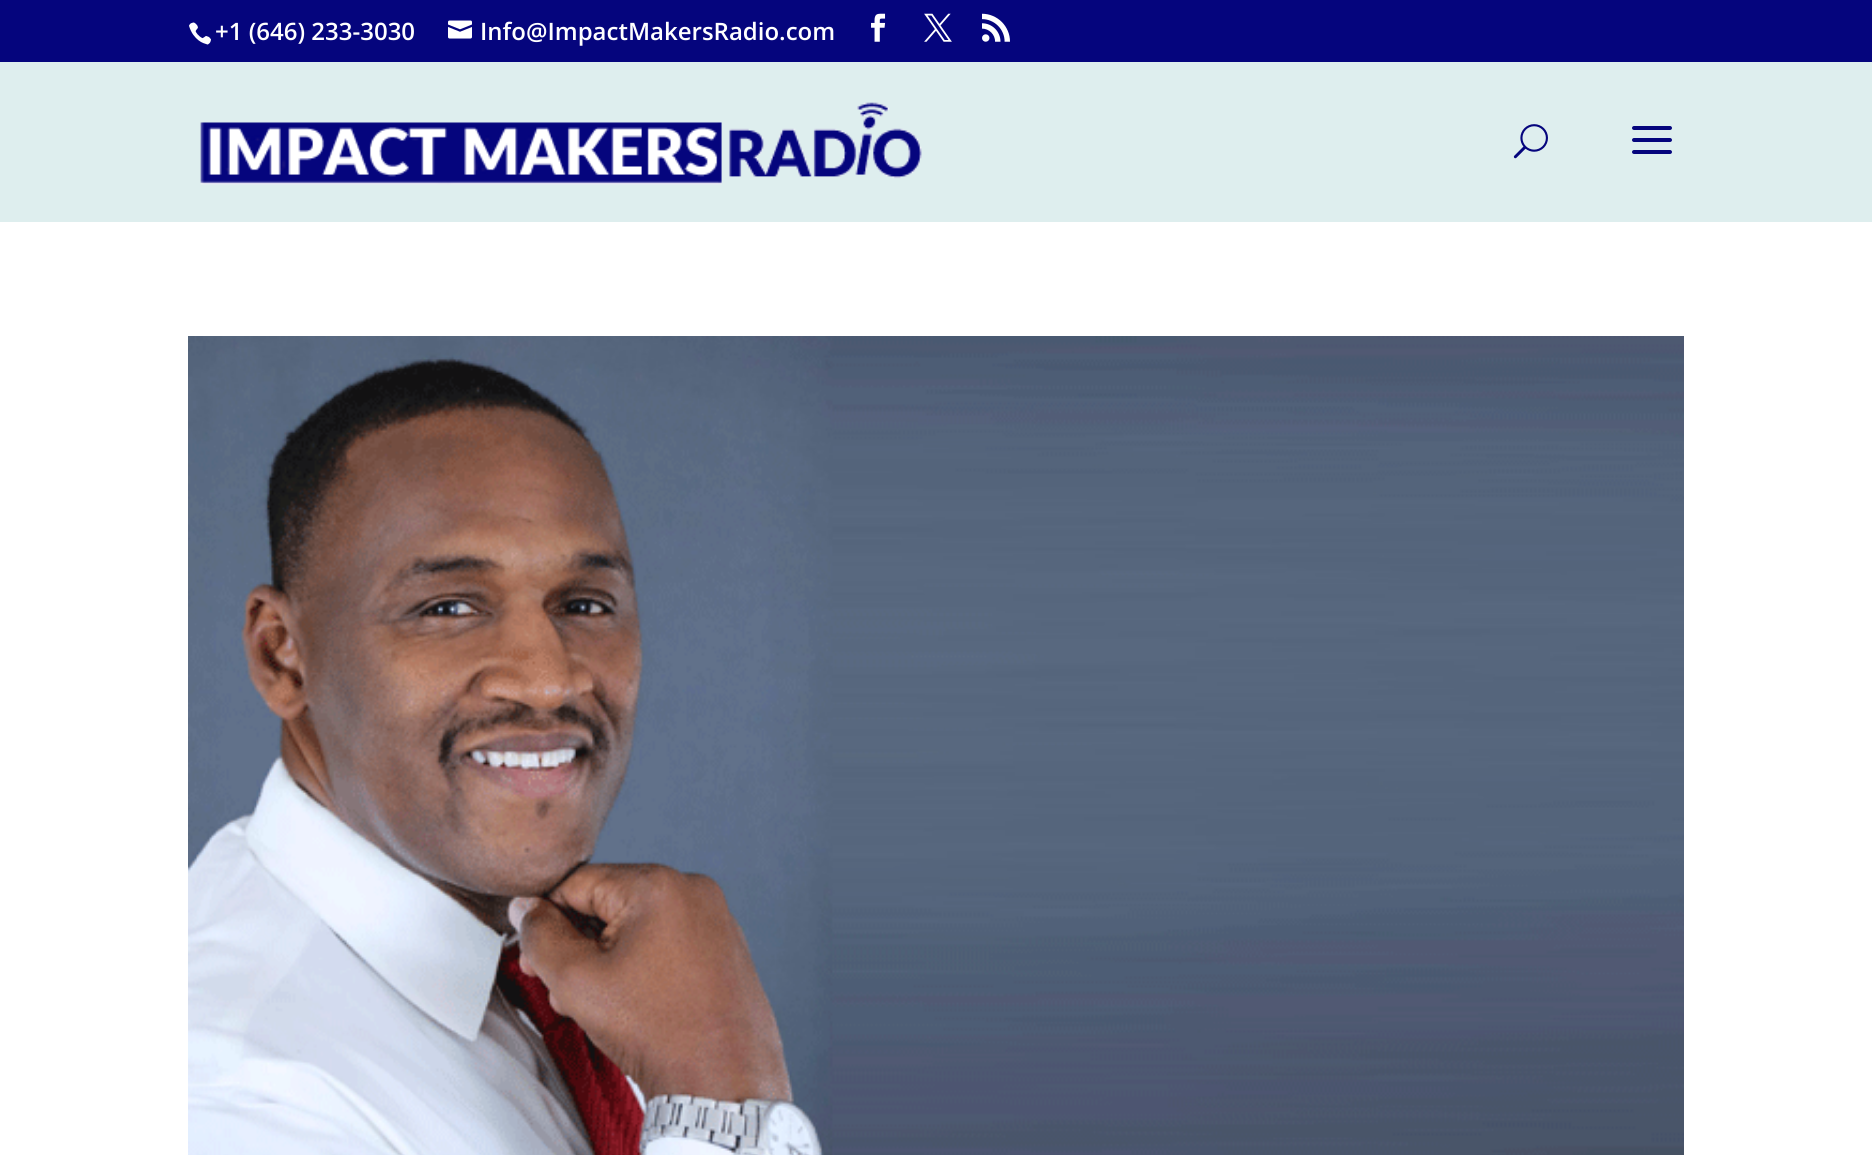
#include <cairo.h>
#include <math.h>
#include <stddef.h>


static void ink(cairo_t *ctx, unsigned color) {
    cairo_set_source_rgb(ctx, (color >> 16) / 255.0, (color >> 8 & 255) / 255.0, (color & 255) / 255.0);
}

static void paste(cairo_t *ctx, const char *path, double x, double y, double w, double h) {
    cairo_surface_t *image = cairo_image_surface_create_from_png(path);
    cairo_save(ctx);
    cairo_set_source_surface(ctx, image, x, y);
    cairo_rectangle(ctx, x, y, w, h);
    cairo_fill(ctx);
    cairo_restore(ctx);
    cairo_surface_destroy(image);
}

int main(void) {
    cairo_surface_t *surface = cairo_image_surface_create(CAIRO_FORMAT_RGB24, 1872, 1155);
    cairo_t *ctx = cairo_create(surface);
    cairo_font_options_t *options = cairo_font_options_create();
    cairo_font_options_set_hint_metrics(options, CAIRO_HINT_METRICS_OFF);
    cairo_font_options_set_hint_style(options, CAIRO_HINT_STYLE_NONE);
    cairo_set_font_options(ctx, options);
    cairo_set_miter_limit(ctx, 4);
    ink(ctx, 0xFFFFFF);
    cairo_paint(ctx);
    ink(ctx, 0x05057D);
    cairo_rectangle(ctx, 0, 0, 1872, 62);
    cairo_fill(ctx);
    paste(ctx, "media/1.png", 189, 22, 22, 23);
    cairo_select_font_face(ctx, "Open Sans SemiBold", CAIRO_FONT_SLANT_NORMAL, CAIRO_FONT_WEIGHT_NORMAL);
    cairo_set_font_size(ctx, 24);
    ink(ctx, 0xFFFFFF);
    cairo_move_to(ctx, 215, 40);
    cairo_show_text(ctx, "+1 (646) 233-3030");
    paste(ctx, "media/2.png", 448, 20, 24, 19);
    cairo_move_to(ctx, 480, 40);
    cairo_show_text(ctx, "Info@ImpactMakersRadio.com");
    paste(ctx, "media/3.png", 871, 13, 15, 29);
    paste(ctx, "media/4.png", 924, 13, 28, 29);
    paste(ctx, "media/5.png", 982, 13, 28, 29);
    ink(ctx, 0xDEEEEE);
    cairo_rectangle(ctx, 0, 62, 1872, 160);
    cairo_fill(ctx);
    paste(ctx, "media/6.png", 200, 102, 722, 83);
    paste(ctx, "media/7.png", 1513, 124, 35, 35);
    paste(ctx, "media/8.png", 1632, 126, 40, 28);
    paste(ctx, "media/9.png", 188, 336, 1496, 819);
    cairo_surface_write_to_png(surface, "image.png");
    cairo_font_options_destroy(options);
    cairo_destroy(ctx);
    cairo_surface_destroy(surface);
    return 0;
}
